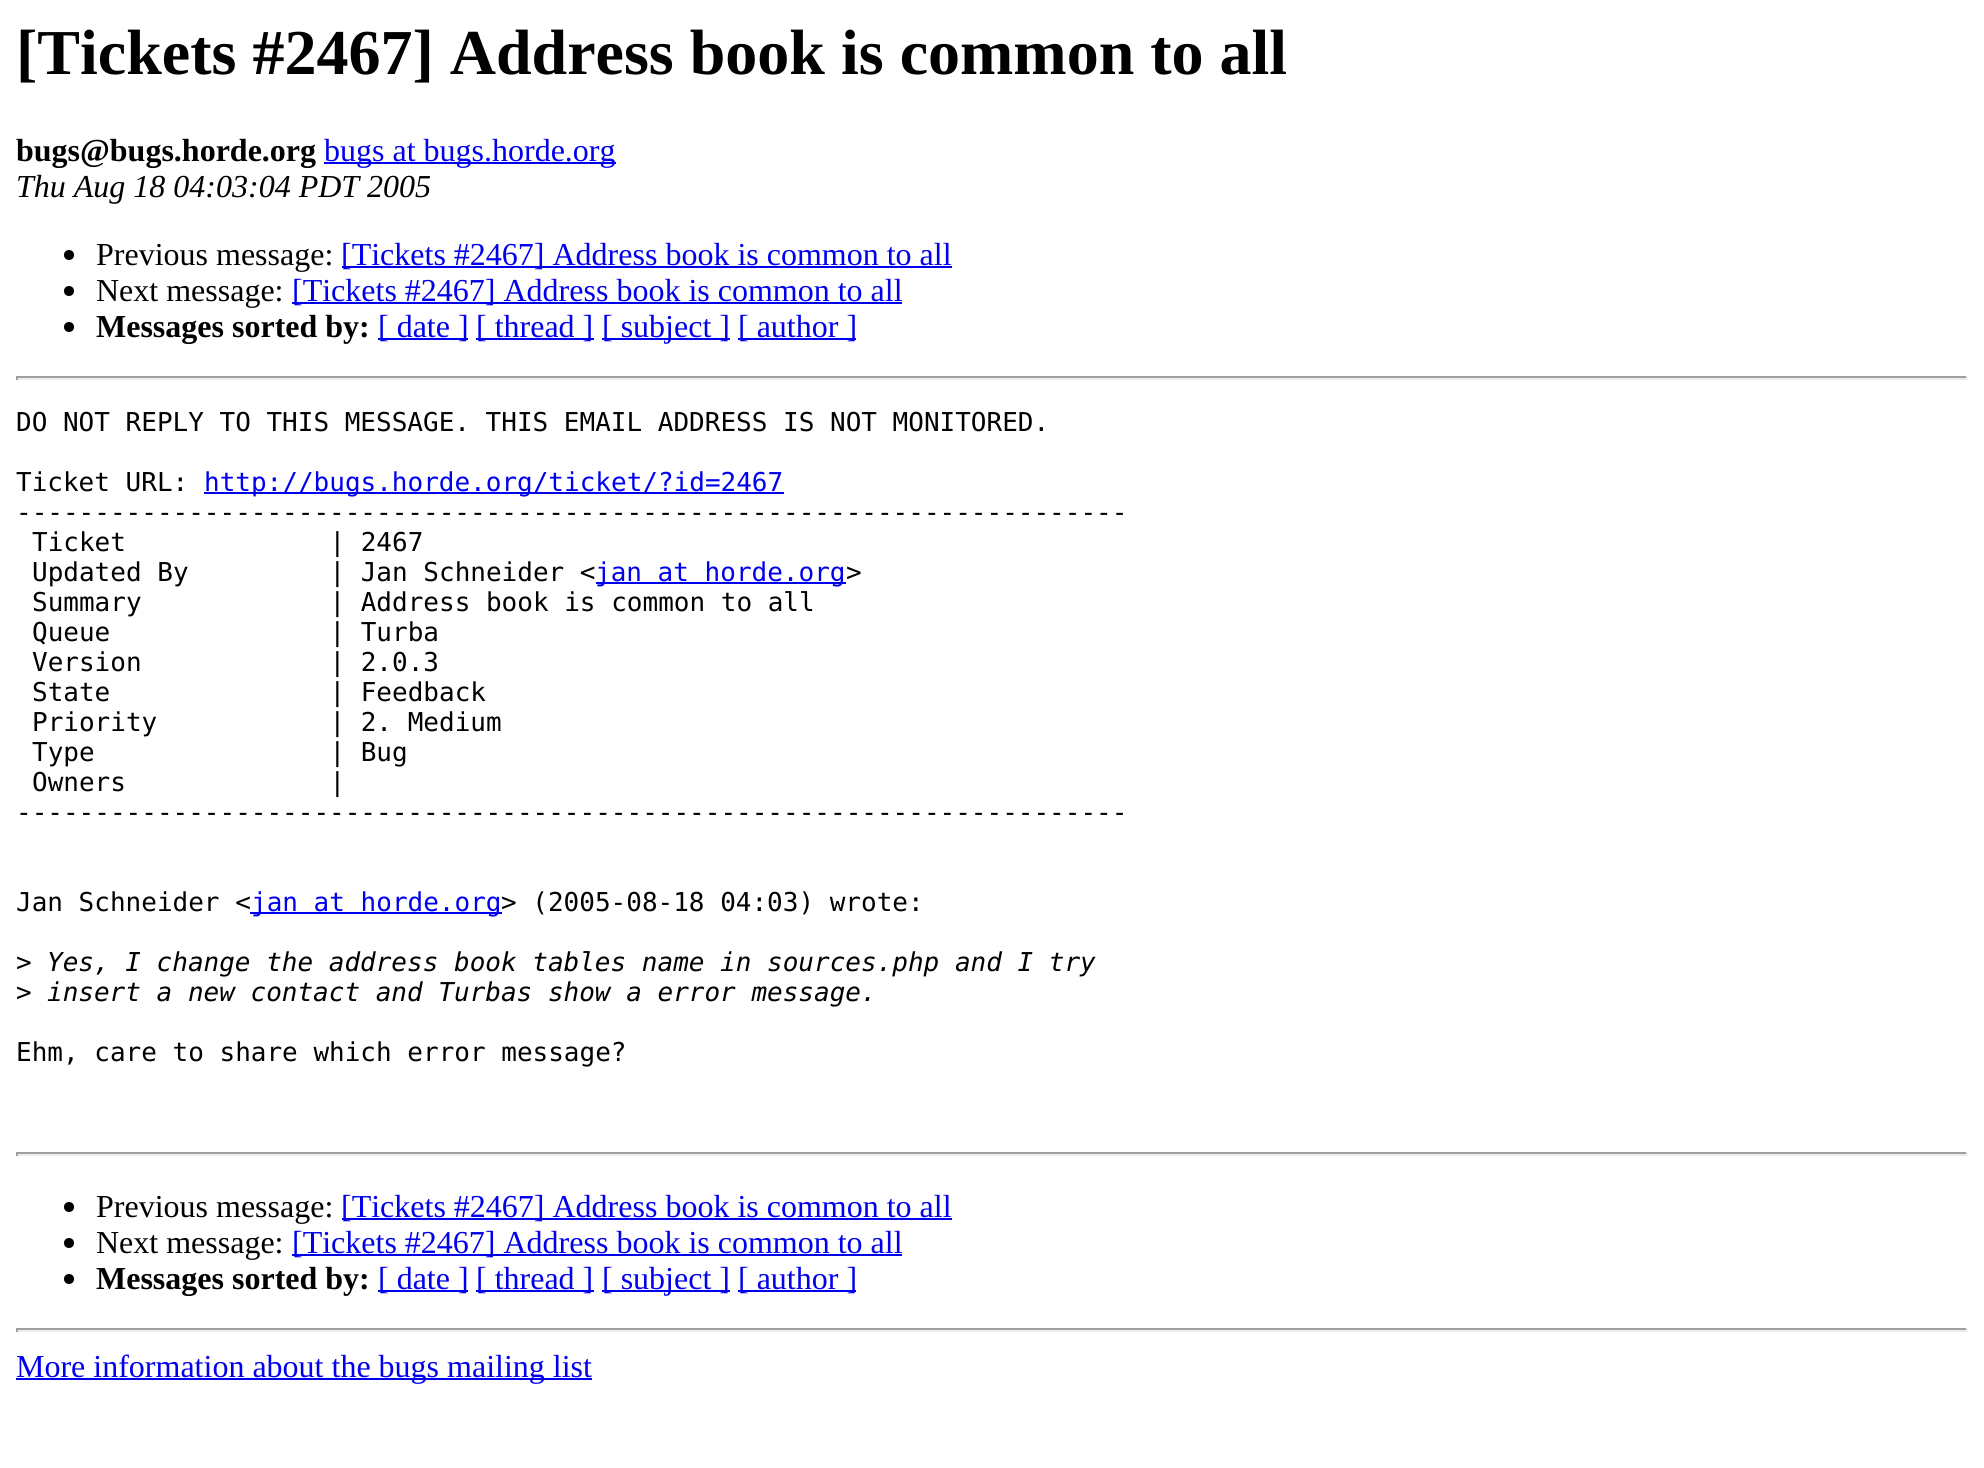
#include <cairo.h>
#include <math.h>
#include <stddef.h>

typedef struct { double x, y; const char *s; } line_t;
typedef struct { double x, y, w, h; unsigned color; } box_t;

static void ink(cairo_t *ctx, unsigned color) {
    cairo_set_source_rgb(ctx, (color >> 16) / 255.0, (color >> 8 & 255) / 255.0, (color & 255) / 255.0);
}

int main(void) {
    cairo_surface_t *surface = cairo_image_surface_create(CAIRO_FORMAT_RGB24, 1984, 1468);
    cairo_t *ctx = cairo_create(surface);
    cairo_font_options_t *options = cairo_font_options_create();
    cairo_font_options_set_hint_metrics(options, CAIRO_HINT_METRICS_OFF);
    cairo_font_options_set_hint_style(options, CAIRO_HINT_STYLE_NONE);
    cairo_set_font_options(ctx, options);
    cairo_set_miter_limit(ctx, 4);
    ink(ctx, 0xFFFFFF);
    cairo_paint(ctx);
    cairo_select_font_face(ctx, "Liberation Serif", CAIRO_FONT_SLANT_NORMAL, CAIRO_FONT_WEIGHT_BOLD);
    cairo_set_font_size(ctx, 64);
    ink(ctx, 0x000000);
    cairo_move_to(ctx, 16, 74);
    cairo_show_text(ctx, "[Tickets #2467] Address book is common to all");
    cairo_set_font_size(ctx, 32);
    cairo_move_to(ctx, 16, 161);
    cairo_show_text(ctx, "bugs@bugs.horde.org");
    ink(ctx, 0x0000EE);
    cairo_rectangle(ctx, 324, 162, 292, 2);
    cairo_fill(ctx);
    cairo_select_font_face(ctx, "Liberation Serif", CAIRO_FONT_SLANT_NORMAL, CAIRO_FONT_WEIGHT_NORMAL);
    cairo_move_to(ctx, 324, 161);
    cairo_show_text(ctx, "bugs at bugs.horde.org");
    cairo_select_font_face(ctx, "Liberation Serif", CAIRO_FONT_SLANT_ITALIC, CAIRO_FONT_WEIGHT_NORMAL);
    ink(ctx, 0x000000);
    cairo_move_to(ctx, 16, 197);
    cairo_show_text(ctx, "Thu Aug 18 04:03:04 PDT 2005");
    cairo_new_path(ctx);
    cairo_arc(ctx, 69, 255, 5, 0, 2 * M_PI);
    cairo_fill(ctx);
    cairo_select_font_face(ctx, "Liberation Serif", CAIRO_FONT_SLANT_NORMAL, CAIRO_FONT_WEIGHT_NORMAL);
    cairo_move_to(ctx, 96, 265);
    cairo_show_text(ctx, "Previous message:");
    ink(ctx, 0x0000EE);
    cairo_rectangle(ctx, 342, 266, 610, 2);
    cairo_fill(ctx);
    cairo_move_to(ctx, 341, 265);
    cairo_show_text(ctx, "[Tickets #2467] Address book is common to all");
    ink(ctx, 0x000000);
    cairo_new_path(ctx);
    cairo_arc(ctx, 69, 291, 5, 0, 2 * M_PI);
    cairo_fill(ctx);
    cairo_move_to(ctx, 96, 301);
    cairo_show_text(ctx, "Next message:");
    ink(ctx, 0x0000EE);
    cairo_rectangle(ctx, 292, 302, 610, 2);
    cairo_fill(ctx);
    cairo_move_to(ctx, 292, 301);
    cairo_show_text(ctx, "[Tickets #2467] Address book is common to all");
    ink(ctx, 0x000000);
    cairo_new_path(ctx);
    cairo_arc(ctx, 69, 327, 5, 0, 2 * M_PI);
    cairo_fill(ctx);
    cairo_select_font_face(ctx, "Liberation Serif", CAIRO_FONT_SLANT_NORMAL, CAIRO_FONT_WEIGHT_BOLD);
    cairo_move_to(ctx, 96, 337);
    cairo_show_text(ctx, "Messages sorted by:");
    ink(ctx, 0x0000EE);
    cairo_rectangle(ctx, 378, 338, 90, 2);
    cairo_fill(ctx);
    cairo_select_font_face(ctx, "Liberation Serif", CAIRO_FONT_SLANT_NORMAL, CAIRO_FONT_WEIGHT_NORMAL);
    cairo_move_to(ctx, 378, 337);
    cairo_show_text(ctx, "[ date ]");
    cairo_rectangle(ctx, 476, 338, 118, 2);
    cairo_fill(ctx);
    cairo_move_to(ctx, 476, 337);
    cairo_show_text(ctx, "[ thread ]");
    cairo_rectangle(ctx, 602, 338, 128, 2);
    cairo_fill(ctx);
    cairo_move_to(ctx, 602, 337);
    cairo_show_text(ctx, "[ subject ]");
    cairo_rectangle(ctx, 738, 338, 118, 2);
    cairo_fill(ctx);
    cairo_move_to(ctx, 738, 337);
    cairo_show_text(ctx, "[ author ]");
    {
        static const box_t items[] = {
            {16, 376, 1952, 2, 0x9F9F9F},
            {1966, 376, 2, 4, 0xEEEEEE},
            {16, 378, 1952, 2, 0xEEEEEE},
            {16, 376, 2, 4, 0x9F9F9F},
        };
        for (size_t i = 0; i < sizeof items / sizeof *items; i++) {
            ink(ctx, items[i].color);
            cairo_rectangle(ctx, items[i].x, items[i].y, items[i].w, items[i].h);
            cairo_fill(ctx);
        }
    }
    cairo_select_font_face(ctx, "DejaVu Sans Mono", CAIRO_FONT_SLANT_NORMAL, CAIRO_FONT_WEIGHT_NORMAL);
    cairo_set_font_size(ctx, 26);
    ink(ctx, 0x000000);
    cairo_move_to(ctx, 16, 431);
    cairo_show_text(ctx, "DO NOT REPLY TO THIS MESSAGE. THIS EMAIL ADDRESS IS NOT MONITORED.");
    cairo_move_to(ctx, 16, 491);
    cairo_show_text(ctx, "Ticket URL:");
    ink(ctx, 0x0000EE);
    cairo_rectangle(ctx, 204, 492, 580, 2);
    cairo_fill(ctx);
    cairo_move_to(ctx, 204, 491);
    cairo_show_text(ctx, "http://bugs.horde.org/ticket/?id=2467");
    ink(ctx, 0x000000);
    {
        static const line_t items[] = {
            {16, 521, "-----------------------------------------------------------------------"},
            {32, 551, "Ticket             | 2467"},
            {32, 581, "Updated By         | Jan Schneider <"},
        };
        for (size_t i = 0; i < sizeof items / sizeof *items; i++) {
            cairo_move_to(ctx, items[i].x, items[i].y);
            cairo_show_text(ctx, items[i].s);
        }
    }
    ink(ctx, 0x0000EE);
    cairo_rectangle(ctx, 596, 582, 250, 2);
    cairo_fill(ctx);
    cairo_move_to(ctx, 595, 581);
    cairo_show_text(ctx, "jan at horde.org");
    ink(ctx, 0x000000);
    {
        static const line_t items[] = {
            {846, 581, ">"},
            {32, 611, "Summary            | Address book is common to all"},
            {32, 641, "Queue              | Turba"},
            {32, 671, "Version            | 2.0.3"},
            {32, 701, "State              | Feedback"},
            {32, 731, "Priority           | 2. Medium"},
            {32, 761, "Type               | Bug"},
            {32, 791, "Owners             |"},
            {16, 821, "-----------------------------------------------------------------------"},
            {16, 911, "Jan Schneider <"},
        };
        for (size_t i = 0; i < sizeof items / sizeof *items; i++) {
            cairo_move_to(ctx, items[i].x, items[i].y);
            cairo_show_text(ctx, items[i].s);
        }
    }
    ink(ctx, 0x0000EE);
    cairo_rectangle(ctx, 250, 912, 252, 2);
    cairo_fill(ctx);
    cairo_move_to(ctx, 251, 911);
    cairo_show_text(ctx, "jan at horde.org");
    ink(ctx, 0x000000);
    cairo_move_to(ctx, 501, 911);
    cairo_show_text(ctx, "> (2005-08-18 04:03) wrote:");
    cairo_move_to(ctx, 16, 971);
    cairo_show_text(ctx, ">");
    cairo_select_font_face(ctx, "DejaVu Sans Mono", CAIRO_FONT_SLANT_ITALIC, CAIRO_FONT_WEIGHT_NORMAL);
    cairo_move_to(ctx, 47, 971);
    cairo_show_text(ctx, "Yes, I change the address book tables name in sources.php and I try");
    cairo_select_font_face(ctx, "DejaVu Sans Mono", CAIRO_FONT_SLANT_NORMAL, CAIRO_FONT_WEIGHT_NORMAL);
    cairo_move_to(ctx, 16, 1001);
    cairo_show_text(ctx, ">");
    cairo_select_font_face(ctx, "DejaVu Sans Mono", CAIRO_FONT_SLANT_ITALIC, CAIRO_FONT_WEIGHT_NORMAL);
    cairo_move_to(ctx, 47, 1001);
    cairo_show_text(ctx, "insert a new contact and Turbas show a error message.");
    cairo_select_font_face(ctx, "DejaVu Sans Mono", CAIRO_FONT_SLANT_NORMAL, CAIRO_FONT_WEIGHT_NORMAL);
    cairo_move_to(ctx, 16, 1061);
    cairo_show_text(ctx, "Ehm, care to share which error message?");
    {
        static const box_t items[] = {
            {16, 1152, 1952, 2, 0x9F9F9F},
            {1966, 1152, 2, 4, 0xEEEEEE},
            {16, 1154, 1952, 2, 0xEEEEEE},
            {16, 1152, 2, 4, 0x9F9F9F},
        };
        for (size_t i = 0; i < sizeof items / sizeof *items; i++) {
            ink(ctx, items[i].color);
            cairo_rectangle(ctx, items[i].x, items[i].y, items[i].w, items[i].h);
            cairo_fill(ctx);
        }
    }
    ink(ctx, 0x000000);
    cairo_new_path(ctx);
    cairo_arc(ctx, 69, 1207, 5, 0, 2 * M_PI);
    cairo_fill(ctx);
    cairo_select_font_face(ctx, "Liberation Serif", CAIRO_FONT_SLANT_NORMAL, CAIRO_FONT_WEIGHT_NORMAL);
    cairo_set_font_size(ctx, 32);
    cairo_move_to(ctx, 96, 1217);
    cairo_show_text(ctx, "Previous message:");
    ink(ctx, 0x0000EE);
    cairo_rectangle(ctx, 342, 1218, 610, 2);
    cairo_fill(ctx);
    cairo_move_to(ctx, 341, 1217);
    cairo_show_text(ctx, "[Tickets #2467] Address book is common to all");
    ink(ctx, 0x000000);
    cairo_new_path(ctx);
    cairo_arc(ctx, 69, 1243, 5, 0, 2 * M_PI);
    cairo_fill(ctx);
    cairo_move_to(ctx, 96, 1253);
    cairo_show_text(ctx, "Next message:");
    ink(ctx, 0x0000EE);
    cairo_rectangle(ctx, 292, 1254, 610, 2);
    cairo_fill(ctx);
    cairo_move_to(ctx, 292, 1253);
    cairo_show_text(ctx, "[Tickets #2467] Address book is common to all");
    ink(ctx, 0x000000);
    cairo_new_path(ctx);
    cairo_arc(ctx, 69, 1279, 5, 0, 2 * M_PI);
    cairo_fill(ctx);
    cairo_select_font_face(ctx, "Liberation Serif", CAIRO_FONT_SLANT_NORMAL, CAIRO_FONT_WEIGHT_BOLD);
    cairo_move_to(ctx, 96, 1289);
    cairo_show_text(ctx, "Messages sorted by:");
    ink(ctx, 0x0000EE);
    cairo_rectangle(ctx, 378, 1290, 90, 2);
    cairo_fill(ctx);
    cairo_select_font_face(ctx, "Liberation Serif", CAIRO_FONT_SLANT_NORMAL, CAIRO_FONT_WEIGHT_NORMAL);
    cairo_move_to(ctx, 378, 1289);
    cairo_show_text(ctx, "[ date ]");
    cairo_rectangle(ctx, 476, 1290, 118, 2);
    cairo_fill(ctx);
    cairo_move_to(ctx, 476, 1289);
    cairo_show_text(ctx, "[ thread ]");
    cairo_rectangle(ctx, 602, 1290, 128, 2);
    cairo_fill(ctx);
    cairo_move_to(ctx, 602, 1289);
    cairo_show_text(ctx, "[ subject ]");
    cairo_rectangle(ctx, 738, 1290, 118, 2);
    cairo_fill(ctx);
    cairo_move_to(ctx, 738, 1289);
    cairo_show_text(ctx, "[ author ]");
    {
        static const box_t items[] = {
            {16, 1328, 1952, 2, 0x9F9F9F},
            {1966, 1328, 2, 4, 0xEEEEEE},
            {16, 1330, 1952, 2, 0xEEEEEE},
            {16, 1328, 2, 4, 0x9F9F9F},
            {16, 1378, 576, 2, 0x0000EE},
        };
        for (size_t i = 0; i < sizeof items / sizeof *items; i++) {
            ink(ctx, items[i].color);
            cairo_rectangle(ctx, items[i].x, items[i].y, items[i].w, items[i].h);
            cairo_fill(ctx);
        }
    }
    cairo_move_to(ctx, 16, 1377);
    cairo_show_text(ctx, "More information about the bugs mailing list");
    cairo_surface_write_to_png(surface, "image.png");
    cairo_font_options_destroy(options);
    cairo_destroy(ctx);
    cairo_surface_destroy(surface);
    return 0;
}
